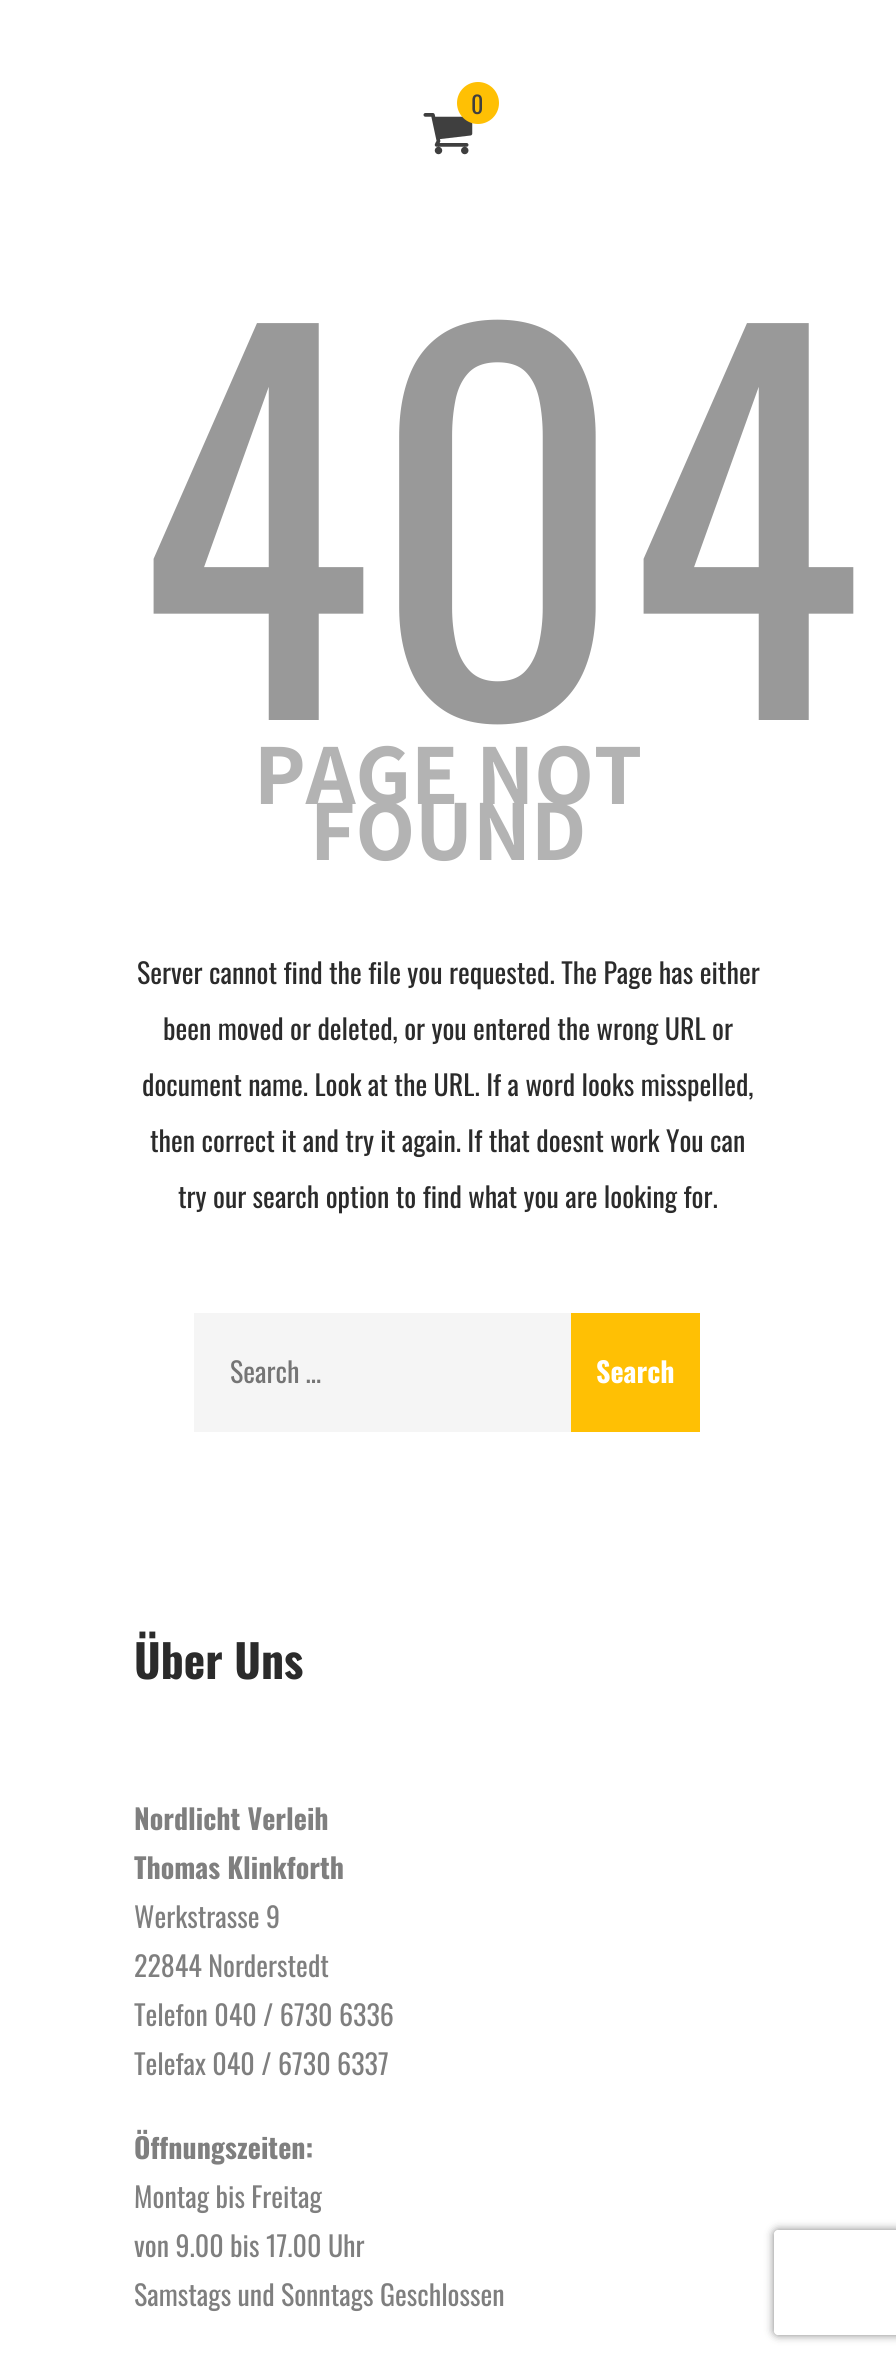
#include <cairo.h>
#include <math.h>
#include <stddef.h>

typedef struct { double x, y; const char *s; } line_t;

static void ink(cairo_t *ctx, unsigned color) {
    cairo_set_source_rgb(ctx, (color >> 16) / 255.0, (color >> 8 & 255) / 255.0, (color & 255) / 255.0);
}

static void round_path(cairo_t *ctx, double x, double y, double w, double h, double r) {
    cairo_new_sub_path(ctx);
    cairo_arc(ctx, x + w - r, y + h - r, r, 0, M_PI / 2);
    cairo_arc(ctx, x + r, y + h - r, r, M_PI / 2, M_PI);
    cairo_arc(ctx, x + r, y + r, r, M_PI, 1.5 * M_PI);
    cairo_arc(ctx, x + w - r, y + r, r, 1.5 * M_PI, 2 * M_PI);
    cairo_close_path(ctx);
}

static void blur_box(cairo_t *ctx, double x, double y, double w, double h, double r, double blur, double alpha) {
    cairo_push_group_with_content(ctx, CAIRO_CONTENT_ALPHA);
    cairo_set_operator(ctx, CAIRO_OPERATOR_SOURCE);
    for (int i = 15; i >= -15 && fmin(w, h) + blur * i / 3 > 0; i -= 2) {
        double e = blur * i / 6;
        cairo_set_source_rgba(ctx, 0, 0, 0, alpha * erfc((i - 1) / 8.5) / 2);
        round_path(ctx, x - e, y - e, w + 2 * e, h + 2 * e, fmax(0, fmin(r + e + blur * .6, fmin(w, h) / 2 + e)));
        cairo_fill(ctx);
    }
    cairo_pattern_t *soft = cairo_pop_group(ctx);
    cairo_mask(ctx, soft);
    cairo_pattern_destroy(soft);
}

static void paste(cairo_t *ctx, const char *path, double x, double y, double w, double h) {
    cairo_surface_t *image = cairo_image_surface_create_from_png(path);
    cairo_save(ctx);
    cairo_set_source_surface(ctx, image, x, y);
    cairo_rectangle(ctx, x, y, w, h);
    cairo_fill(ctx);
    cairo_restore(ctx);
    cairo_surface_destroy(image);
}

int main(void) {
    cairo_surface_t *surface = cairo_image_surface_create(CAIRO_FORMAT_RGB24, 896, 2358);
    cairo_t *ctx = cairo_create(surface);
    cairo_font_options_t *options = cairo_font_options_create();
    cairo_font_options_set_hint_metrics(options, CAIRO_HINT_METRICS_OFF);
    cairo_font_options_set_hint_style(options, CAIRO_HINT_STYLE_NONE);
    cairo_set_font_options(ctx, options);
    cairo_set_miter_limit(ctx, 4);
    ink(ctx, 0xFFFFFF);
    cairo_paint(ctx);
    paste(ctx, "media/1.png", 423, 113, 50, 42);
    ink(ctx, 0xFFC004);
    cairo_arc(ctx, 478, 103, 21, 0, 2 * M_PI);
    cairo_fill(ctx);
    cairo_select_font_face(ctx, "Oswald", CAIRO_FONT_SLANT_NORMAL, CAIRO_FONT_WEIGHT_NORMAL);
    cairo_set_font_size(ctx, 24);
    ink(ctx, 0x3F3F3F);
    cairo_move_to(ctx, 471, 114);
    cairo_show_text(ctx, "0");
    cairo_set_font_size(ctx, 490);
    ink(ctx, 0x999999);
    cairo_move_to(ctx, 134, 720);
    cairo_show_text(ctx, "404");
    cairo_select_font_face(ctx, "Assistant", CAIRO_FONT_SLANT_NORMAL, CAIRO_FONT_WEIGHT_BOLD);
    cairo_set_font_size(ctx, 87.5);
    ink(ctx, 0xB3B3B3);
    cairo_move_to(ctx, 254, 804);
    cairo_show_text(ctx, "PAGE NOT");
    cairo_move_to(ctx, 310, 860);
    cairo_show_text(ctx, "FOUND");
    cairo_select_font_face(ctx, "Oswald", CAIRO_FONT_SLANT_NORMAL, CAIRO_FONT_WEIGHT_NORMAL);
    cairo_set_font_size(ctx, 28);
    ink(ctx, 0x2B2B2B);
    {
        static const line_t items[] = {
            {137, 984, "Server cannot find the file you requested. The Page has either"},
            {163, 1040, "been moved or deleted, or you entered the wrong URL or"},
            {142, 1096, "document name. Look at the URL. If a word looks misspelled,"},
            {150, 1152, "then correct it and try it again. If that doesnt work You can"},
            {178, 1208, "try our search option to find what you are looking for."},
        };
        for (size_t i = 0; i < sizeof items / sizeof *items; i++) {
            cairo_move_to(ctx, items[i].x, items[i].y);
            cairo_show_text(ctx, items[i].s);
        }
    }
    ink(ctx, 0xF5F5F5);
    cairo_rectangle(ctx, 194, 1313, 377, 119);
    cairo_fill(ctx);
    ink(ctx, 0x757575);
    cairo_move_to(ctx, 230, 1383);
    cairo_show_text(ctx, "Search …");
    ink(ctx, 0xFFC004);
    cairo_rectangle(ctx, 571, 1313, 129, 119);
    cairo_fill(ctx);
    cairo_select_font_face(ctx, "Oswald", CAIRO_FONT_SLANT_NORMAL, CAIRO_FONT_WEIGHT_BOLD);
    ink(ctx, 0xFFFFFF);
    cairo_move_to(ctx, 596, 1383);
    cairo_show_text(ctx, "Search");
    cairo_set_font_size(ctx, 45.5);
    ink(ctx, 0x2B2B2B);
    cairo_move_to(ctx, 134, 1679);
    cairo_show_text(ctx, "Über Uns");
    cairo_set_font_size(ctx, 28);
    ink(ctx, 0x7F7F7F);
    cairo_move_to(ctx, 134, 1830);
    cairo_show_text(ctx, "Nordlicht Verleih");
    cairo_move_to(ctx, 134, 1879);
    cairo_show_text(ctx, "Thomas Klinkforth");
    cairo_select_font_face(ctx, "Oswald", CAIRO_FONT_SLANT_NORMAL, CAIRO_FONT_WEIGHT_NORMAL);
    {
        static const line_t items[] = {
            {134, 1928, "Werkstrasse 9"},
            {134, 1977, "22844 Norderstedt"},
            {134, 2026, "Telefon 040 / 6730 6336"},
            {134, 2075, "Telefax 040 / 6730 6337"},
        };
        for (size_t i = 0; i < sizeof items / sizeof *items; i++) {
            cairo_move_to(ctx, items[i].x, items[i].y);
            cairo_show_text(ctx, items[i].s);
        }
    }
    cairo_select_font_face(ctx, "Oswald", CAIRO_FONT_SLANT_NORMAL, CAIRO_FONT_WEIGHT_BOLD);
    cairo_move_to(ctx, 134, 2159);
    cairo_show_text(ctx, "Öffnungszeiten:");
    cairo_select_font_face(ctx, "Oswald", CAIRO_FONT_SLANT_NORMAL, CAIRO_FONT_WEIGHT_NORMAL);
    {
        static const line_t items[] = {
            {134, 2208, "Montag bis Freitag"},
            {134, 2257, "von 9.00 bis 17.00 Uhr"},
            {134, 2306, "Samstags und Sonntags Geschlossen"},
        };
        for (size_t i = 0; i < sizeof items / sizeof *items; i++) {
            cairo_move_to(ctx, items[i].x, items[i].y);
            cairo_show_text(ctx, items[i].s);
        }
    }
    cairo_save(ctx);
    cairo_set_fill_rule(ctx, CAIRO_FILL_RULE_EVEN_ODD);
    cairo_new_path(ctx);
    cairo_move_to(ctx, 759, 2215);
    cairo_line_to(ctx, 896, 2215);
    cairo_line_to(ctx, 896, 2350);
    cairo_line_to(ctx, 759, 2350);
    cairo_close_path(ctx);
    cairo_move_to(ctx, 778, 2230);
    cairo_line_to(ctx, 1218, 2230);
    cairo_curve_to(ctx, 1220, 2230, 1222, 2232, 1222, 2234);
    cairo_line_to(ctx, 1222, 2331);
    cairo_curve_to(ctx, 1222, 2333, 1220, 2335, 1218, 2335);
    cairo_line_to(ctx, 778, 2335);
    cairo_curve_to(ctx, 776, 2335, 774, 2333, 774, 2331);
    cairo_line_to(ctx, 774, 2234);
    cairo_curve_to(ctx, 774, 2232, 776, 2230, 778, 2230);
    cairo_close_path(ctx);
    cairo_clip(ctx);
    ink(ctx, 0x808080);
    blur_box(ctx, 774, 2230, 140, 105, 4, 4.5, 1);
    cairo_restore(ctx);
    cairo_surface_write_to_png(surface, "image.png");
    cairo_font_options_destroy(options);
    cairo_destroy(ctx);
    cairo_surface_destroy(surface);
    return 0;
}
